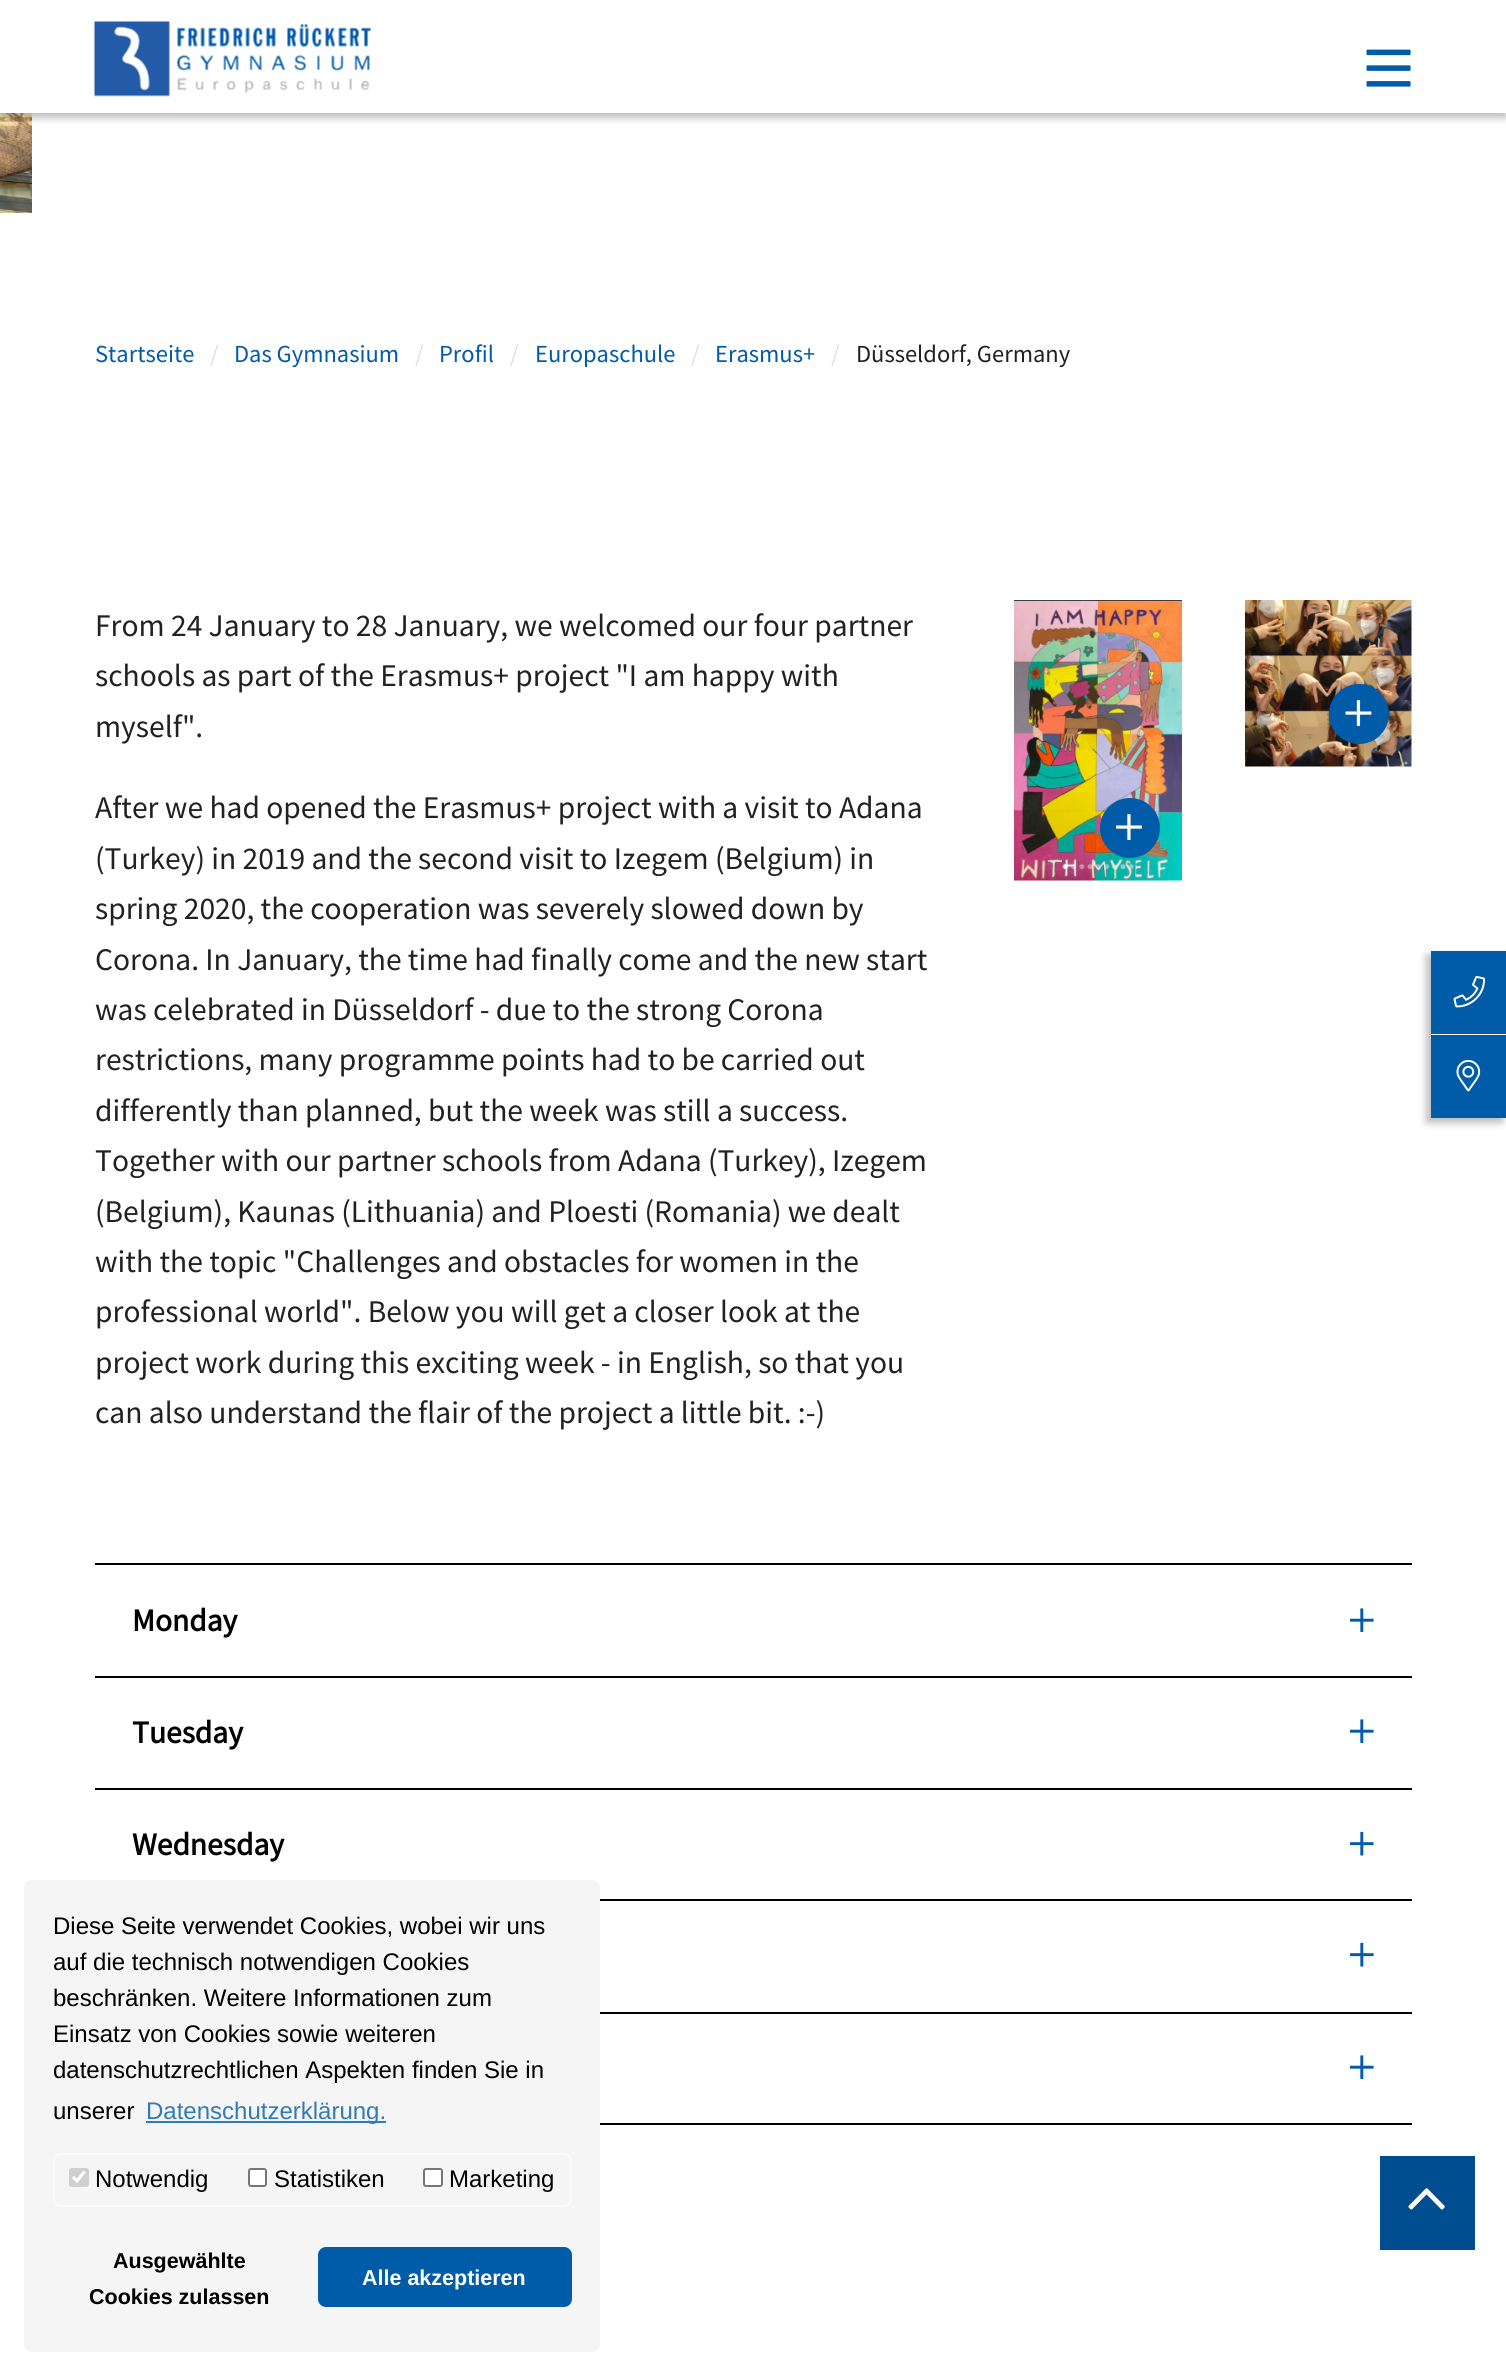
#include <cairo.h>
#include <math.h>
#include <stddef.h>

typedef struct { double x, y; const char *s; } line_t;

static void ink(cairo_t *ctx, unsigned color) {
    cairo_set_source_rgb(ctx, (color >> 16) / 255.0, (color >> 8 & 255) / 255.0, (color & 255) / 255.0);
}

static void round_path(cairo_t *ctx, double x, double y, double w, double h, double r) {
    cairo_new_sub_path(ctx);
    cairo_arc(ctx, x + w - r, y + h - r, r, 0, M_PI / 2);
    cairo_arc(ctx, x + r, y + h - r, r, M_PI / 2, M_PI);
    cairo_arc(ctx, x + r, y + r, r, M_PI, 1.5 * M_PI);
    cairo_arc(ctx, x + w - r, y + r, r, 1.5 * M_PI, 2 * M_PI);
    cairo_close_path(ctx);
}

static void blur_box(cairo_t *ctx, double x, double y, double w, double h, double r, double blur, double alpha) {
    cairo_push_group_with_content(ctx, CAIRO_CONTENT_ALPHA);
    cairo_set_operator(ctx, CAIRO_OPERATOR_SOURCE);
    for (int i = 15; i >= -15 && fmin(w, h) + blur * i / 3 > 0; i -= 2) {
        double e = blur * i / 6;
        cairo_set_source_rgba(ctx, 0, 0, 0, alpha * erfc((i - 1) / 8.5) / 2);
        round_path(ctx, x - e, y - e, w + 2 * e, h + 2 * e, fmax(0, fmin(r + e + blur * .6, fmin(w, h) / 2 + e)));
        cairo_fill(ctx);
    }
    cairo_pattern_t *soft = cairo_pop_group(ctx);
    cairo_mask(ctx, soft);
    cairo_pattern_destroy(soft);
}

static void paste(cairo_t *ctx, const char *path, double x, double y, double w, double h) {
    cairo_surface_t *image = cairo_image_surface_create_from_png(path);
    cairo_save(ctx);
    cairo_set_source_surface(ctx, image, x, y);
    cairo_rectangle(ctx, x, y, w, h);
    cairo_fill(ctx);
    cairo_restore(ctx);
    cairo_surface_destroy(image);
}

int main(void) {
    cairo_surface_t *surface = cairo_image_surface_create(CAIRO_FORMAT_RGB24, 1506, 2376);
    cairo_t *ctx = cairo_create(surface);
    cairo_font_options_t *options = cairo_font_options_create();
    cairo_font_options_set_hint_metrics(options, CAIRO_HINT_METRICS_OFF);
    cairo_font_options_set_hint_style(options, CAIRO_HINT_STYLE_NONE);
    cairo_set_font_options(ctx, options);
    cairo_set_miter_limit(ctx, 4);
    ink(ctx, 0xFFFFFF);
    cairo_paint(ctx);
    paste(ctx, "media/3.png", 0, 113, 32, 100);
    ink(ctx, 0x000000);
    blur_box(ctx, 0, 5, 1506, 112, 0, 4.5, 0.16);
    blur_box(ctx, 0, 5, 1506, 112, 0, 4.5, 0.16);
    ink(ctx, 0xFFFFFF);
    cairo_rectangle(ctx, 0, 0, 1506, 113);
    cairo_fill(ctx);
    paste(ctx, "media/1.png", 94, 21, 277, 76);
    paste(ctx, "media/2.png", 1366, 49, 45, 38);
    cairo_select_font_face(ctx, "Source Sans Pro", CAIRO_FONT_SLANT_NORMAL, CAIRO_FONT_WEIGHT_NORMAL);
    cairo_set_font_size(ctx, 24.5);
    ink(ctx, 0x005BA9);
    cairo_move_to(ctx, 95, 362);
    cairo_show_text(ctx, "Startseite");
    ink(ctx, 0xE0E0E0);
    cairo_move_to(ctx, 210, 362);
    cairo_show_text(ctx, "/");
    ink(ctx, 0x005BA9);
    cairo_move_to(ctx, 234, 362);
    cairo_show_text(ctx, "Das Gymnasium");
    ink(ctx, 0xE0E0E0);
    cairo_move_to(ctx, 415, 362);
    cairo_show_text(ctx, "/");
    ink(ctx, 0x005BA9);
    cairo_move_to(ctx, 439, 362);
    cairo_show_text(ctx, "Profil");
    ink(ctx, 0xE0E0E0);
    cairo_move_to(ctx, 510, 362);
    cairo_show_text(ctx, "/");
    ink(ctx, 0x005BA9);
    cairo_move_to(ctx, 535, 362);
    cairo_show_text(ctx, "Europaschule");
    ink(ctx, 0xE0E0E0);
    cairo_move_to(ctx, 691, 362);
    cairo_show_text(ctx, "/");
    ink(ctx, 0x005BA9);
    cairo_move_to(ctx, 715, 362);
    cairo_show_text(ctx, "Erasmus+");
    ink(ctx, 0xE0E0E0);
    cairo_move_to(ctx, 831, 362);
    cairo_show_text(ctx, "/");
    ink(ctx, 0x212121);
    cairo_move_to(ctx, 856, 362);
    cairo_show_text(ctx, "Düsseldorf, Germany");
    cairo_set_font_size(ctx, 31.5);
    {
        static const line_t items[] = {
            {95, 636, "From 24 January to 28 January, we welcomed our four partner"},
            {95, 686, "schools as part of the Erasmus+ project \"I am happy with"},
            {95, 737, "myself\"."},
            {95, 818, "After we had opened the Erasmus+ project with a visit to Adana"},
            {95, 869, "(Turkey) in 2019 and the second visit to Izegem (Belgium) in"},
            {95, 919, "spring 2020, the cooperation was severely slowed down by"},
            {95, 970, "Corona. In January, the time had finally come and the new start"},
            {95, 1020, "was celebrated in Düsseldorf - due to the strong Corona"},
            {95, 1070, "restrictions, many programme points had to be carried out"},
            {95, 1121, "differently than planned, but the week was still a success."},
            {95, 1171, "Together with our partner schools from Adana (Turkey), Izegem"},
            {95, 1222, "(Belgium), Kaunas (Lithuania) and Ploesti (Romania) we dealt"},
            {95, 1272, "with the topic \"Challenges and obstacles for women in the"},
            {95, 1322, "professional world\". Below you will get a closer look at the"},
            {95, 1373, "project work during this exciting week - in English, so that you"},
            {95, 1423, "can also understand the flair of the project a little bit. :-)"},
        };
        for (size_t i = 0; i < sizeof items / sizeof *items; i++) {
            cairo_move_to(ctx, items[i].x, items[i].y);
            cairo_show_text(ctx, items[i].s);
        }
    }
    paste(ctx, "media/4.png", 1014, 600, 168, 281);
    ink(ctx, 0x005BA9);
    cairo_arc(ctx, 1130, 828, 30, 0, 2 * M_PI);
    cairo_fill(ctx);
    paste(ctx, "media/5.png", 1116, 814, 26, 26);
    paste(ctx, "media/6.png", 1245, 600, 167, 167);
    cairo_arc(ctx, 1359, 714, 30, 0, 2 * M_PI);
    cairo_fill(ctx);
    paste(ctx, "media/7.png", 1345, 700, 27, 26);
    ink(ctx, 0x000000);
    cairo_rectangle(ctx, 95, 1563, 1317, 2);
    cairo_fill(ctx);
    cairo_rectangle(ctx, 95, 1676, 1317, 2);
    cairo_fill(ctx);
    cairo_select_font_face(ctx, "Source Sans Pro", CAIRO_FONT_SLANT_NORMAL, CAIRO_FONT_WEIGHT_BOLD);
    cairo_move_to(ctx, 132, 1631);
    cairo_show_text(ctx, "Monday");
    paste(ctx, "media/8.png", 1350, 1608, 24, 24);
    cairo_rectangle(ctx, 95, 1788, 1317, 2);
    cairo_fill(ctx);
    cairo_move_to(ctx, 132, 1743);
    cairo_show_text(ctx, "Tuesday");
    paste(ctx, "media/8.png", 1350, 1719, 24, 24);
    cairo_rectangle(ctx, 600, 1899, 812, 2);
    cairo_fill(ctx);
    cairo_move_to(ctx, 132, 1855);
    cairo_show_text(ctx, "Wednesday");
    paste(ctx, "media/9.png", 1350, 1831, 24, 25);
    cairo_rectangle(ctx, 600, 2012, 812, 2);
    cairo_fill(ctx);
    paste(ctx, "media/9.png", 1350, 1942, 24, 25);
    cairo_rectangle(ctx, 600, 2123, 812, 2);
    cairo_fill(ctx);
    paste(ctx, "media/8.png", 1350, 2055, 24, 24);
    ink(ctx, 0x000000);
    blur_box(ctx, 1427, 956, 75, 166, 0, 4.5, 0.16);
    blur_box(ctx, 1427, 956, 75, 166, 0, 4.5, 0.16);
    ink(ctx, 0xFFFFFF);
    cairo_rectangle(ctx, 1431, 1034, 75, 1);
    cairo_fill(ctx);
    ink(ctx, 0x005BA9);
    cairo_rectangle(ctx, 1431, 951, 75, 83);
    cairo_fill(ctx);
    paste(ctx, "media/10.png", 1453, 975, 33, 33);
    cairo_rectangle(ctx, 1431, 1035, 75, 83);
    cairo_fill(ctx);
    paste(ctx, "media/11.png", 1456, 1059, 25, 33);
    ink(ctx, 0x004D90);
    cairo_rectangle(ctx, 1380, 2156, 95, 94);
    cairo_fill(ctx);
    paste(ctx, "media/12.png", 1408, 2188, 37, 22);
    ink(ctx, 0xF5F5F5);
    round_path(ctx, 24, 1880, 576, 472, 8);
    cairo_fill(ctx);
    cairo_select_font_face(ctx, "Liberation Sans", CAIRO_FONT_SLANT_NORMAL, CAIRO_FONT_WEIGHT_NORMAL);
    cairo_set_font_size(ctx, 24);
    ink(ctx, 0x000000);
    {
        static const line_t items[] = {
            {53, 1934, "Diese Seite verwendet Cookies, wobei wir uns"},
            {53, 1970, "auf die technisch notwendigen Cookies"},
            {53, 2006, "beschränken. Weitere Informationen zum"},
            {53, 2042, "Einsatz von Cookies sowie weiteren"},
            {53, 2078, "datenschutzrechtlichen Aspekten finden Sie in"},
            {53, 2119, "unserer"},
        };
        for (size_t i = 0; i < sizeof items / sizeof *items; i++) {
            cairo_move_to(ctx, items[i].x, items[i].y);
            cairo_show_text(ctx, items[i].s);
        }
    }
    ink(ctx, 0x317AB8);
    cairo_rectangle(ctx, 146, 2121, 240, 2);
    cairo_fill(ctx);
    cairo_move_to(ctx, 146, 2119);
    cairo_show_text(ctx, "Datenschutzerklärung.");
    round_path(ctx, 54, 2154, 517, 52, 7);
    ink(ctx, 0xFAFAFA);
    cairo_stroke(ctx);
    ink(ctx, 0xCFCFCF);
    round_path(ctx, 69, 2168, 20, 19, 3);
    cairo_fill(ctx);
    cairo_new_path(ctx);
    cairo_move_to(ctx, 73, 2177);
    cairo_line_to(ctx, 77, 2181);
    cairo_line_to(ctx, 84.5, 2171.5);
    ink(ctx, 0xFFFFFF);
    cairo_set_line_width(ctx, 3.1);
    cairo_stroke(ctx);
    ink(ctx, 0x000000);
    cairo_move_to(ctx, 95, 2187);
    cairo_show_text(ctx, "Notwendig");
    ink(ctx, 0xFFFFFF);
    round_path(ctx, 249, 2169, 17, 17, 2);
    cairo_fill_preserve(ctx);
    ink(ctx, 0x767676);
    cairo_set_line_width(ctx, 2);
    cairo_stroke(ctx);
    ink(ctx, 0x000000);
    cairo_move_to(ctx, 274, 2187);
    cairo_show_text(ctx, "Statistiken");
    ink(ctx, 0xFFFFFF);
    round_path(ctx, 424, 2169, 18, 17, 2);
    cairo_fill_preserve(ctx);
    ink(ctx, 0x767676);
    cairo_stroke(ctx);
    ink(ctx, 0x000000);
    cairo_move_to(ctx, 449, 2187);
    cairo_show_text(ctx, "Marketing");
    cairo_select_font_face(ctx, "Liberation Sans", CAIRO_FONT_SLANT_NORMAL, CAIRO_FONT_WEIGHT_BOLD);
    cairo_set_font_size(ctx, 21.5);
    cairo_move_to(ctx, 113, 2268);
    cairo_show_text(ctx, "Ausgewählte");
    cairo_move_to(ctx, 89, 2304);
    cairo_show_text(ctx, "Cookies zulassen");
    ink(ctx, 0x005BA9);
    round_path(ctx, 318, 2247, 254, 60, 8);
    cairo_fill(ctx);
    ink(ctx, 0xFFFFFF);
    cairo_move_to(ctx, 362, 2285);
    cairo_show_text(ctx, "Alle akzeptieren");
    cairo_surface_write_to_png(surface, "image.png");
    cairo_font_options_destroy(options);
    cairo_destroy(ctx);
    cairo_surface_destroy(surface);
    return 0;
}
